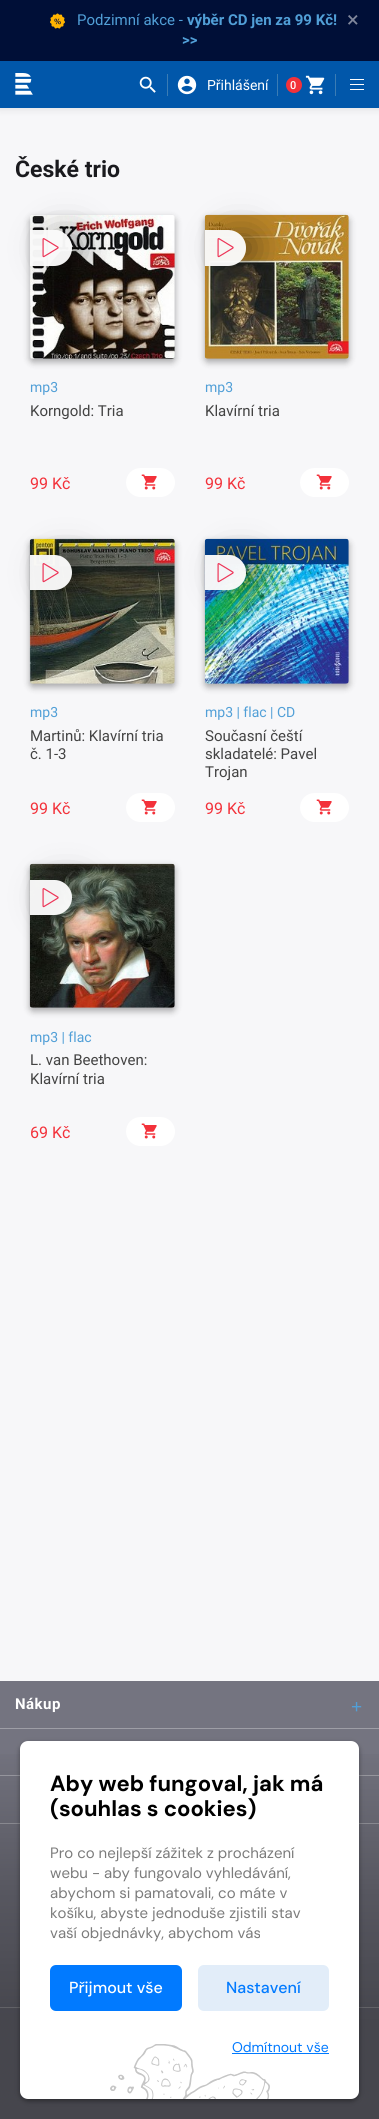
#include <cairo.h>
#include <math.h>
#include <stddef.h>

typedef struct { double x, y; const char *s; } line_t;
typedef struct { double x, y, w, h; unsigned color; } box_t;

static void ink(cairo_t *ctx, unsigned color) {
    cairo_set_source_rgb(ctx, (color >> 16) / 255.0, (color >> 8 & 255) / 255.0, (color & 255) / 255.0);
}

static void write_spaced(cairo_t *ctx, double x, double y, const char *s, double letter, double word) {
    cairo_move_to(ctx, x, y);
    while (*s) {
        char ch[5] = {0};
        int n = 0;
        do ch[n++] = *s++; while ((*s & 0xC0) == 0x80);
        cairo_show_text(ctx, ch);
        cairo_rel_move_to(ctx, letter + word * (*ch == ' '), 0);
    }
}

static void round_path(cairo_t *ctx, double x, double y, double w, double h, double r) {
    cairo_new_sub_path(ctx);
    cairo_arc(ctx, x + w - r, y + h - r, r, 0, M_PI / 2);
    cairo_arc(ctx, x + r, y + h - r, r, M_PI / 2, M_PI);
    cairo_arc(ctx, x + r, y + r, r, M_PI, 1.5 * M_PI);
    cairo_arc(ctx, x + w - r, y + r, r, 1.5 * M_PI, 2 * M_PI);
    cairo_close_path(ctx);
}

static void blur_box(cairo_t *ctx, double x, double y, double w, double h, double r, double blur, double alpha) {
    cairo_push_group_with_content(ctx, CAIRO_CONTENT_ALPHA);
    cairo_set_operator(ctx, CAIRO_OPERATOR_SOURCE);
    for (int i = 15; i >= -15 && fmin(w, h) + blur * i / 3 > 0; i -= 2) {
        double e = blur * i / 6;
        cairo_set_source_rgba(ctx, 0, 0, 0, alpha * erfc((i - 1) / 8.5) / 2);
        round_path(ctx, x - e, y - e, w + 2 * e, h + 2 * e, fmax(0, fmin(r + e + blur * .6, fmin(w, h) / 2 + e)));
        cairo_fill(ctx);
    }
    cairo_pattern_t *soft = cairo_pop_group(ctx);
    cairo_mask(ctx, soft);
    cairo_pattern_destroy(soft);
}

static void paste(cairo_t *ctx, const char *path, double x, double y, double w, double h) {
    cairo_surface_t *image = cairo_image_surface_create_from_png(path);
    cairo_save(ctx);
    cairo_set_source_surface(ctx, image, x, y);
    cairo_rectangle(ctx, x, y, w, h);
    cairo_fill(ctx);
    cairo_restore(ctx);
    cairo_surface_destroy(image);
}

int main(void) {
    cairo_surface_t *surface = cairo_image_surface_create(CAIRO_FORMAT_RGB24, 379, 2119);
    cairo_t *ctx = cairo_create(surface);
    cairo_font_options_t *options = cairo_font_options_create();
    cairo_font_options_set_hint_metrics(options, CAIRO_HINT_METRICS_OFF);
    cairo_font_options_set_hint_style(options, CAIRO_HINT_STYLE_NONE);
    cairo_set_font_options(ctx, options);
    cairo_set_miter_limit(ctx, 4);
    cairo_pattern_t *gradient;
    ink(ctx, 0xF7F7F9);
    cairo_paint(ctx);
    ink(ctx, 0x000000);
    blur_box(ctx, -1, 60, 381, 49, 0, 4, 0.1);
    ink(ctx, 0x000F37);
    cairo_rectangle(ctx, 0, 0, 379, 61);
    cairo_fill(ctx);
    paste(ctx, "media/1.png", 50, 13, 15, 16);
    cairo_select_font_face(ctx, "Roboto", CAIRO_FONT_SLANT_NORMAL, CAIRO_FONT_WEIGHT_NORMAL);
    cairo_set_font_size(ctx, 15);
    ink(ctx, 0x519FD7);
    cairo_move_to(ctx, 77, 25);
    cairo_show_text(ctx, "Podzimní akce -");
    cairo_select_font_face(ctx, "Roboto", CAIRO_FONT_SLANT_NORMAL, CAIRO_FONT_WEIGHT_BOLD);
    cairo_move_to(ctx, 187, 25);
    cairo_show_text(ctx, "výběr CD jen za 99 Kč!");
    cairo_select_font_face(ctx, "Roboto", CAIRO_FONT_SLANT_NORMAL, CAIRO_FONT_WEIGHT_NORMAL);
    cairo_set_font_size(ctx, 22);
    ink(ctx, 0x80879B);
    cairo_move_to(ctx, 347, 27);
    cairo_show_text(ctx, "×");
    cairo_select_font_face(ctx, "Roboto", CAIRO_FONT_SLANT_NORMAL, CAIRO_FONT_WEIGHT_BOLD);
    cairo_set_font_size(ctx, 15);
    ink(ctx, 0x519FD7);
    cairo_move_to(ctx, 182, 45);
    cairo_show_text(ctx, ">>");
    ink(ctx, 0x0157AA);
    cairo_rectangle(ctx, 0, 61, 379, 47);
    cairo_fill(ctx);
    paste(ctx, "media/2.png", 15, 73, 18, 22);
    ink(ctx, 0x3B7CB4);
    cairo_rectangle(ctx, 167, 74, 1, 22);
    cairo_fill(ctx);
    paste(ctx, "media/3.png", 139, 76, 17, 17);
    cairo_rectangle(ctx, 277, 74, 1, 22);
    cairo_fill(ctx);
    paste(ctx, "media/4.png", 177, 75, 20, 20);
    cairo_select_font_face(ctx, "Roboto", CAIRO_FONT_SLANT_NORMAL, CAIRO_FONT_WEIGHT_NORMAL);
    cairo_set_font_size(ctx, 14);
    ink(ctx, 0xFFFFFF);
    cairo_move_to(ctx, 207, 90);
    cairo_show_text(ctx, "Přihlášení");
    ink(ctx, 0x3B7CB4);
    cairo_rectangle(ctx, 335, 74, 1, 22);
    cairo_fill(ctx);
    ink(ctx, 0xF3313A);
    cairo_arc(ctx, 294, 85, 8, 0, 2 * M_PI);
    cairo_fill(ctx);
    cairo_select_font_face(ctx, "Roboto Medium", CAIRO_FONT_SLANT_NORMAL, CAIRO_FONT_WEIGHT_NORMAL);
    cairo_set_font_size(ctx, 11);
    ink(ctx, 0xFFFFFF);
    cairo_move_to(ctx, 290, 89);
    cairo_show_text(ctx, "0");
    paste(ctx, "media/5.png", 305, 75, 20, 20);
    {
        static const box_t items[] = {
            {350, 79, 14, 1, 0xFFFFFF},
            {350, 84, 14, 1, 0xFFFFFF},
            {350, 89, 14, 1, 0xFFFFFF},
        };
        for (size_t i = 0; i < sizeof items / sizeof *items; i++) {
            ink(ctx, items[i].color);
            cairo_rectangle(ctx, items[i].x, items[i].y, items[i].w, items[i].h);
            cairo_fill(ctx);
        }
    }
    cairo_select_font_face(ctx, "Roboto", CAIRO_FONT_SLANT_NORMAL, CAIRO_FONT_WEIGHT_BOLD);
    cairo_set_font_size(ctx, 23);
    ink(ctx, 0x1A1A1E);
    cairo_move_to(ctx, 15, 177);
    cairo_show_text(ctx, "České trio");
    ink(ctx, 0x000000);
    blur_box(ctx, 30, 218, 145, 144, 3, 3.5, 0.33);
    paste(ctx, "media/7.png", 30, 215, 145, 144);
    cairo_save(ctx);
    cairo_set_fill_rule(ctx, CAIRO_FILL_RULE_EVEN_ODD);
    cairo_new_path(ctx);
    cairo_move_to(ctx, 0, 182);
    cairo_line_to(ctx, 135, 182);
    cairo_line_to(ctx, 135, 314);
    cairo_line_to(ctx, 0, 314);
    cairo_close_path(ctx);
    cairo_move_to(ctx, 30, 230);
    cairo_line_to(ctx, 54, 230);
    cairo_curve_to(ctx, 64, 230, 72, 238, 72, 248);
    cairo_curve_to(ctx, 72, 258, 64, 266, 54, 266);
    cairo_line_to(ctx, 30, 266);
    cairo_close_path(ctx);
    cairo_clip(ctx);
    blur_box(ctx, 51, 236, 30, 24, 12, 17.5, 0.45);
    cairo_restore(ctx);
    cairo_set_source_rgba(ctx, 0.976, 0.976, 0.976, 0.97);
    cairo_new_path(ctx);
    cairo_move_to(ctx, 30, 230);
    cairo_line_to(ctx, 54, 230);
    cairo_curve_to(ctx, 64, 230, 72, 238, 72, 248);
    cairo_curve_to(ctx, 72, 258, 64, 266, 54, 266);
    cairo_line_to(ctx, 30, 266);
    cairo_close_path(ctx);
    cairo_fill(ctx);
    paste(ctx, "media/6.png", 42, 238, 17, 20);
    cairo_select_font_face(ctx, "Roboto", CAIRO_FONT_SLANT_NORMAL, CAIRO_FONT_WEIGHT_NORMAL);
    cairo_set_font_size(ctx, 14);
    ink(ctx, 0x519FD7);
    cairo_move_to(ctx, 30, 392);
    cairo_show_text(ctx, "mp3");
    cairo_set_font_size(ctx, 15);
    ink(ctx, 0x434343);
    cairo_move_to(ctx, 30, 416);
    cairo_show_text(ctx, "Korngold: Tria");
    cairo_set_font_size(ctx, 16);
    ink(ctx, 0xF3313A);
    cairo_move_to(ctx, 30, 489);
    cairo_show_text(ctx, "99 Kč");
    ink(ctx, 0xFFFFFF);
    round_path(ctx, 126, 468, 49, 29, 14.5);
    cairo_fill(ctx);
    paste(ctx, "media/8.png", 141, 474, 16, 16);
    ink(ctx, 0x000000);
    blur_box(ctx, 205, 218, 144, 144, 3, 3.5, 0.33);
    paste(ctx, "media/10.png", 204, 214, 145, 145);
    cairo_save(ctx);
    cairo_set_fill_rule(ctx, CAIRO_FILL_RULE_EVEN_ODD);
    cairo_new_path(ctx);
    cairo_move_to(ctx, 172, 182);
    cairo_line_to(ctx, 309, 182);
    cairo_line_to(ctx, 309, 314);
    cairo_line_to(ctx, 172, 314);
    cairo_close_path(ctx);
    cairo_move_to(ctx, 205, 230);
    cairo_line_to(ctx, 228, 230);
    cairo_curve_to(ctx, 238, 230, 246, 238, 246, 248);
    cairo_curve_to(ctx, 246, 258, 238, 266, 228, 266);
    cairo_line_to(ctx, 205, 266);
    cairo_close_path(ctx);
    cairo_clip(ctx);
    blur_box(ctx, 226, 236, 29, 24, 12, 17.5, 0.45);
    cairo_restore(ctx);
    cairo_set_source_rgba(ctx, 0.976, 0.976, 0.976, 0.97);
    cairo_new_path(ctx);
    cairo_move_to(ctx, 205, 230);
    cairo_line_to(ctx, 228, 230);
    cairo_curve_to(ctx, 238, 230, 246, 238, 246, 248);
    cairo_curve_to(ctx, 246, 258, 238, 266, 228, 266);
    cairo_line_to(ctx, 205, 266);
    cairo_close_path(ctx);
    cairo_fill(ctx);
    paste(ctx, "media/9.png", 217, 238, 17, 20);
    cairo_set_font_size(ctx, 14);
    ink(ctx, 0x519FD7);
    cairo_move_to(ctx, 205, 392);
    cairo_show_text(ctx, "mp3");
    cairo_set_font_size(ctx, 15);
    ink(ctx, 0x434343);
    cairo_move_to(ctx, 205, 416);
    cairo_show_text(ctx, "Klavírní tria");
    cairo_set_font_size(ctx, 16);
    ink(ctx, 0xF3313A);
    cairo_move_to(ctx, 205, 489);
    cairo_show_text(ctx, "99 Kč");
    ink(ctx, 0xFFFFFF);
    round_path(ctx, 300, 468, 49, 29, 14.5);
    cairo_fill(ctx);
    paste(ctx, "media/8.png", 316, 474, 16, 16);
    ink(ctx, 0x000000);
    blur_box(ctx, 30, 542, 145, 145, 3, 3.5, 0.33);
    paste(ctx, "media/12.png", 29, 538, 146, 146);
    cairo_save(ctx);
    cairo_set_fill_rule(ctx, CAIRO_FILL_RULE_EVEN_ODD);
    cairo_new_path(ctx);
    cairo_move_to(ctx, 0, 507);
    cairo_line_to(ctx, 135, 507);
    cairo_line_to(ctx, 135, 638);
    cairo_line_to(ctx, 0, 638);
    cairo_close_path(ctx);
    cairo_move_to(ctx, 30, 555);
    cairo_line_to(ctx, 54.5, 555);
    cairo_curve_to(ctx, 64, 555, 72, 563, 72, 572.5);
    cairo_curve_to(ctx, 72, 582, 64, 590, 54.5, 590);
    cairo_line_to(ctx, 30, 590);
    cairo_close_path(ctx);
    cairo_clip(ctx);
    blur_box(ctx, 51, 561, 30, 23, 11.5, 17.5, 0.45);
    cairo_restore(ctx);
    cairo_set_source_rgba(ctx, 0.976, 0.976, 0.976, 0.97);
    cairo_new_path(ctx);
    cairo_move_to(ctx, 30, 555);
    cairo_line_to(ctx, 54.5, 555);
    cairo_curve_to(ctx, 64, 555, 72, 563, 72, 572.5);
    cairo_curve_to(ctx, 72, 582, 64, 590, 54.5, 590);
    cairo_line_to(ctx, 30, 590);
    cairo_close_path(ctx);
    cairo_fill(ctx);
    paste(ctx, "media/11.png", 42, 563, 17, 20);
    cairo_set_font_size(ctx, 14);
    ink(ctx, 0x519FD7);
    cairo_move_to(ctx, 30, 717);
    cairo_show_text(ctx, "mp3");
    cairo_set_font_size(ctx, 15);
    ink(ctx, 0x434343);
    cairo_move_to(ctx, 30, 741);
    cairo_show_text(ctx, "Martinů: Klavírní tria");
    cairo_move_to(ctx, 30, 759);
    cairo_show_text(ctx, "č. 1-3");
    cairo_set_font_size(ctx, 16);
    ink(ctx, 0xF3313A);
    cairo_move_to(ctx, 30, 814);
    cairo_show_text(ctx, "99 Kč");
    ink(ctx, 0xFFFFFF);
    round_path(ctx, 126, 793, 49, 29, 14.5);
    cairo_fill(ctx);
    paste(ctx, "media/8.png", 141, 799, 16, 16);
    ink(ctx, 0x000000);
    blur_box(ctx, 205, 542, 144, 145, 3, 3.5, 0.33);
    paste(ctx, "media/14.png", 204, 538, 145, 146);
    cairo_save(ctx);
    cairo_set_fill_rule(ctx, CAIRO_FILL_RULE_EVEN_ODD);
    cairo_new_path(ctx);
    cairo_move_to(ctx, 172, 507);
    cairo_line_to(ctx, 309, 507);
    cairo_line_to(ctx, 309, 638);
    cairo_line_to(ctx, 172, 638);
    cairo_close_path(ctx);
    cairo_move_to(ctx, 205, 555);
    cairo_line_to(ctx, 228.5, 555);
    cairo_curve_to(ctx, 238, 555, 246, 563, 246, 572.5);
    cairo_curve_to(ctx, 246, 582, 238, 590, 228.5, 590);
    cairo_line_to(ctx, 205, 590);
    cairo_close_path(ctx);
    cairo_clip(ctx);
    blur_box(ctx, 226, 561, 29, 23, 11.5, 17.5, 0.45);
    cairo_restore(ctx);
    cairo_set_source_rgba(ctx, 0.976, 0.976, 0.976, 0.97);
    cairo_new_path(ctx);
    cairo_move_to(ctx, 205, 555);
    cairo_line_to(ctx, 228.5, 555);
    cairo_curve_to(ctx, 238, 555, 246, 563, 246, 572.5);
    cairo_curve_to(ctx, 246, 582, 238, 590, 228.5, 590);
    cairo_line_to(ctx, 205, 590);
    cairo_close_path(ctx);
    cairo_fill(ctx);
    paste(ctx, "media/13.png", 217, 563, 17, 20);
    cairo_set_font_size(ctx, 14);
    ink(ctx, 0x519FD7);
    cairo_move_to(ctx, 205, 717);
    cairo_show_text(ctx, "mp3 | flac | CD");
    cairo_set_font_size(ctx, 15);
    ink(ctx, 0x434343);
    {
        static const line_t items[] = {
            {205, 741, "Současní čeští"},
            {205, 759, "skladatelé: Pavel"},
            {205, 777, "Trojan"},
        };
        for (size_t i = 0; i < sizeof items / sizeof *items; i++) {
            cairo_move_to(ctx, items[i].x, items[i].y);
            cairo_show_text(ctx, items[i].s);
        }
    }
    cairo_set_font_size(ctx, 16);
    ink(ctx, 0xF3313A);
    cairo_move_to(ctx, 205, 814);
    cairo_show_text(ctx, "99 Kč");
    ink(ctx, 0xFFFFFF);
    round_path(ctx, 300, 793, 49, 29, 14.5);
    cairo_fill(ctx);
    paste(ctx, "media/8.png", 316, 799, 16, 16);
    ink(ctx, 0x000000);
    blur_box(ctx, 30, 867, 145, 144, 3, 3.5, 0.33);
    paste(ctx, "media/16.png", 29, 863, 146, 145);
    cairo_save(ctx);
    cairo_set_fill_rule(ctx, CAIRO_FILL_RULE_EVEN_ODD);
    cairo_new_path(ctx);
    cairo_move_to(ctx, 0, 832);
    cairo_line_to(ctx, 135, 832);
    cairo_line_to(ctx, 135, 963);
    cairo_line_to(ctx, 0, 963);
    cairo_close_path(ctx);
    cairo_move_to(ctx, 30, 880);
    cairo_line_to(ctx, 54.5, 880);
    cairo_curve_to(ctx, 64, 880, 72, 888, 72, 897.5);
    cairo_curve_to(ctx, 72, 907, 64, 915, 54.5, 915);
    cairo_line_to(ctx, 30, 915);
    cairo_close_path(ctx);
    cairo_clip(ctx);
    blur_box(ctx, 51, 886, 30, 23, 11.5, 17.5, 0.45);
    cairo_restore(ctx);
    cairo_set_source_rgba(ctx, 0.976, 0.976, 0.976, 0.97);
    cairo_new_path(ctx);
    cairo_move_to(ctx, 30, 880);
    cairo_line_to(ctx, 54.5, 880);
    cairo_curve_to(ctx, 64, 880, 72, 888, 72, 897.5);
    cairo_curve_to(ctx, 72, 907, 64, 915, 54.5, 915);
    cairo_line_to(ctx, 30, 915);
    cairo_close_path(ctx);
    cairo_fill(ctx);
    paste(ctx, "media/15.png", 42, 888, 17, 20);
    cairo_set_font_size(ctx, 14);
    ink(ctx, 0x519FD7);
    cairo_move_to(ctx, 30, 1042);
    cairo_show_text(ctx, "mp3 | flac");
    cairo_set_font_size(ctx, 15);
    ink(ctx, 0x434343);
    cairo_move_to(ctx, 30, 1065);
    cairo_show_text(ctx, "L. van Beethoven:");
    cairo_move_to(ctx, 30, 1084);
    cairo_show_text(ctx, "Klavírní tria");
    cairo_set_font_size(ctx, 16);
    ink(ctx, 0xF3313A);
    cairo_move_to(ctx, 30, 1138);
    cairo_show_text(ctx, "69 Kč");
    ink(ctx, 0xFFFFFF);
    round_path(ctx, 126, 1117, 49, 29, 14.5);
    cairo_fill(ctx);
    paste(ctx, "media/8.png", 141, 1123, 16, 16);
    ink(ctx, 0x747480);
    cairo_rectangle(ctx, 0, 1681, 379, 438);
    cairo_fill(ctx);
    ink(ctx, 0x9E9EA6);
    cairo_rectangle(ctx, 0, 1728, 379, 1);
    cairo_fill(ctx);
    cairo_select_font_face(ctx, "Roboto", CAIRO_FONT_SLANT_NORMAL, CAIRO_FONT_WEIGHT_BOLD);
    cairo_set_font_size(ctx, 15);
    ink(ctx, 0xFFFFFF);
    write_spaced(ctx, 15, 1709, "Nákup", 0.5, 0);
    cairo_select_font_face(ctx, "Liberation Sans", CAIRO_FONT_SLANT_NORMAL, CAIRO_FONT_WEIGHT_NORMAL);
    cairo_set_font_size(ctx, 19);
    ink(ctx, 0x519FD7);
    write_spaced(ctx, 351, 1713, "+", 0.5, 0);
    {
        static const box_t items[] = {
            {0, 1775, 379, 1, 0x9E9EA6},
            {0, 1823, 379, 1, 0x9E9EA6},
            {0, 2007, 379, 1, 0x9E9EA6},
        };
        for (size_t i = 0; i < sizeof items / sizeof *items; i++) {
            ink(ctx, items[i].color);
            cairo_rectangle(ctx, items[i].x, items[i].y, items[i].w, items[i].h);
            cairo_fill(ctx);
        }
    }
    gradient = cairo_pattern_create_linear(189, 1741, 190, 2119);
    cairo_pattern_add_color_stop_rgba(gradient, 0, 0, 0, 0, 0);
    cairo_pattern_add_color_stop_rgba(gradient, 0.4, 0, 0, 0, 0.25);
    cairo_pattern_add_color_stop_rgba(gradient, 0.75, 0, 0, 0, 0.4);
    cairo_set_source(ctx, gradient);
    cairo_pattern_destroy(gradient);
    cairo_rectangle(ctx, 0, 1754, 379, 365);
    cairo_fill(ctx);
    ink(ctx, 0x000000);
    blur_box(ctx, 20, 1743, 339, 358, 8, 2.5, 0.4);
    ink(ctx, 0xFFFFFF);
    round_path(ctx, 20, 1741, 339, 358, 8);
    cairo_fill(ctx);
    cairo_select_font_face(ctx, "DM Sans", CAIRO_FONT_SLANT_NORMAL, CAIRO_FONT_WEIGHT_BOLD);
    cairo_set_font_size(ctx, 22);
    ink(ctx, 0x000000);
    cairo_move_to(ctx, 50, 1791);
    cairo_show_text(ctx, "Aby web fungoval, jak má");
    cairo_move_to(ctx, 50, 1816);
    cairo_show_text(ctx, "(souhlas s cookies)");
    cairo_select_font_face(ctx, "DM Sans", CAIRO_FONT_SLANT_NORMAL, CAIRO_FONT_WEIGHT_NORMAL);
    cairo_set_font_size(ctx, 15);
    ink(ctx, 0x7B7B7B);
    {
        static const line_t items[] = {
            {50, 1858, "Pro co nejlepší zážitek z procházení"},
            {50, 1878, "webu - aby fungovalo vyhledávání,"},
            {50, 1898, "abychom si pamatovali, co máte v"},
            {50, 1918, "košíku, abyste jednoduše zjistili stav"},
            {50, 1938, "vaší objednávky, abychom vás"},
        };
        for (size_t i = 0; i < sizeof items / sizeof *items; i++) {
            cairo_move_to(ctx, items[i].x, items[i].y);
            cairo_show_text(ctx, items[i].s);
        }
    }
    ink(ctx, 0x017AFF);
    round_path(ctx, 50, 1965, 132, 46, 6);
    cairo_fill(ctx);
    cairo_select_font_face(ctx, "DM Sans Medium", CAIRO_FONT_SLANT_NORMAL, CAIRO_FONT_WEIGHT_NORMAL);
    cairo_set_font_size(ctx, 16);
    ink(ctx, 0xFFFFFF);
    cairo_move_to(ctx, 69, 1993);
    cairo_show_text(ctx, "Přijmout vše");
    ink(ctx, 0xE2EDF9);
    round_path(ctx, 198, 1965, 131, 46, 6);
    cairo_fill(ctx);
    ink(ctx, 0x017AFF);
    cairo_move_to(ctx, 226, 1993);
    cairo_show_text(ctx, "Nastavení");
    paste(ctx, "media/17.png", 110, 2044, 160, 55);
    cairo_select_font_face(ctx, "DM Sans", CAIRO_FONT_SLANT_NORMAL, CAIRO_FONT_WEIGHT_NORMAL);
    cairo_set_font_size(ctx, 14);
    cairo_move_to(ctx, 232, 2052);
    cairo_show_text(ctx, "Odmítnout vše");
    cairo_rectangle(ctx, 232, 2053, 97, 1);
    cairo_fill(ctx);
    cairo_surface_write_to_png(surface, "image.png");
    cairo_font_options_destroy(options);
    cairo_destroy(ctx);
    cairo_surface_destroy(surface);
    return 0;
}
